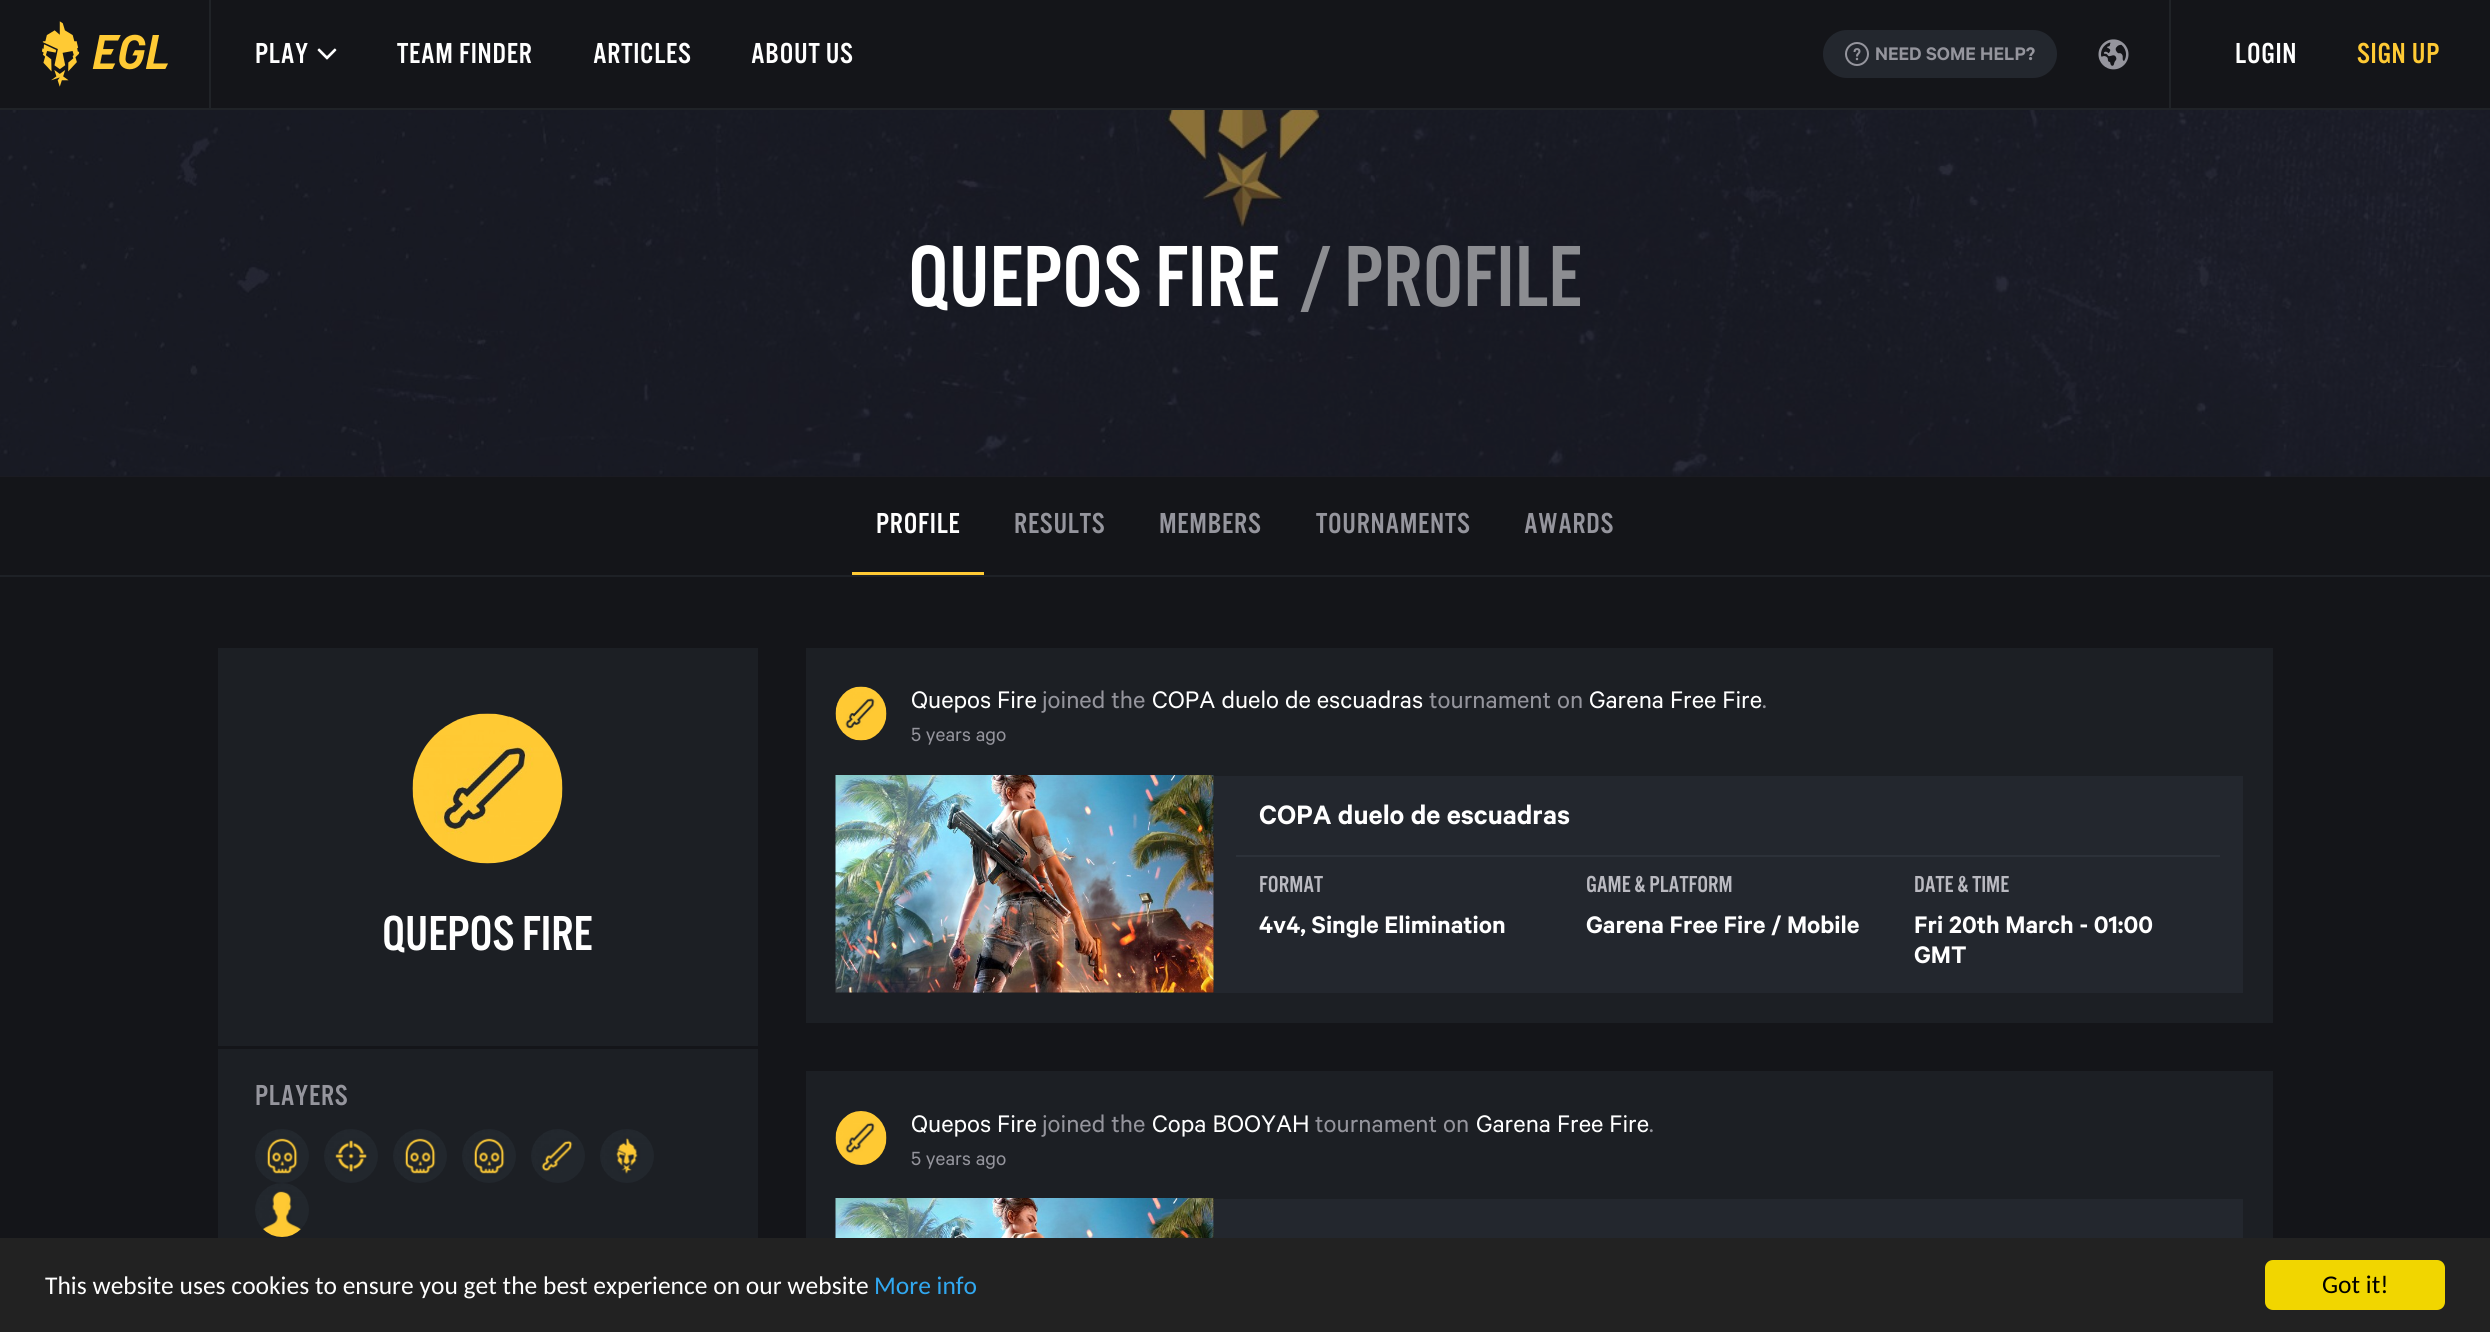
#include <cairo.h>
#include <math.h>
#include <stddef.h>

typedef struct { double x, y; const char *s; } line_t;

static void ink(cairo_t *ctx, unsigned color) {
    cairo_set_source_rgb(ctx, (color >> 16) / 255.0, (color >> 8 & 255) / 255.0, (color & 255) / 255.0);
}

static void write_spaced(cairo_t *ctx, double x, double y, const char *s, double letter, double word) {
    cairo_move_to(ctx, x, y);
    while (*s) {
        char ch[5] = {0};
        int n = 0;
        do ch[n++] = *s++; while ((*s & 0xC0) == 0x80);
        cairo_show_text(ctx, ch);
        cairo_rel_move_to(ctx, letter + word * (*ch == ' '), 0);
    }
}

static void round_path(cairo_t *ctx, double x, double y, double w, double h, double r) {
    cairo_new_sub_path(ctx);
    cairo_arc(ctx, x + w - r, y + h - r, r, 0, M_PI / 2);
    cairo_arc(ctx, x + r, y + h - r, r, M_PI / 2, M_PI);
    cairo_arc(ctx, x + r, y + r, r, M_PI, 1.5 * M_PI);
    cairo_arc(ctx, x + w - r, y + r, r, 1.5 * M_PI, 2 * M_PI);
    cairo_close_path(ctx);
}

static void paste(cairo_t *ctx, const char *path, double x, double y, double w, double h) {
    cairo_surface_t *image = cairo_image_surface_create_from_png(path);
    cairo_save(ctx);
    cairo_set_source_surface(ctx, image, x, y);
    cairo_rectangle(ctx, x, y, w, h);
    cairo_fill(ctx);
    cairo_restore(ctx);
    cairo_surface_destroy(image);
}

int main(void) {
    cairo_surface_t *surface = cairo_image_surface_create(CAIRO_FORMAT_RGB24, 2490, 1332);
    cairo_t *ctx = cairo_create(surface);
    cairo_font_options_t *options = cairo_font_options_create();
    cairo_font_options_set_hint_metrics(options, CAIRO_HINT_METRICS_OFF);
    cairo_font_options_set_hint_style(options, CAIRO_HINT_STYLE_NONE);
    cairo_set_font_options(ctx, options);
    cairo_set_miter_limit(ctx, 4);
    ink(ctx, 0x141519);
    cairo_paint(ctx);
    ink(ctx, 0x202327);
    cairo_rectangle(ctx, 0, 108, 2490, 2);
    cairo_fill(ctx);
    cairo_rectangle(ctx, 209, 0, 2, 108);
    cairo_fill(ctx);
    paste(ctx, "media/1.png", 42, 21, 126, 66);
    cairo_select_font_face(ctx, "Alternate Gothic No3", CAIRO_FONT_SLANT_NORMAL, CAIRO_FONT_WEIGHT_NORMAL);
    cairo_set_font_size(ctx, 30);
    ink(ctx, 0xFFFFFF);
    write_spaced(ctx, 255, 63, "PLAY", 0.75, 0);
    paste(ctx, "media/2.png", 317, 48, 20, 12);
    {
        static const line_t items[] = {
            {397, 63, "TEAM FINDER"},
            {593, 63, "ARTICLES"},
            {751, 63, "ABOUT US"},
        };
        for (size_t i = 0; i < sizeof items / sizeof *items; i++) {
            write_spaced(ctx, items[i].x, items[i].y, items[i].s, 0.75, 0);
        }
    }
    ink(ctx, 0x202327);
    cairo_rectangle(ctx, 2169, 0, 2, 108);
    cairo_fill(ctx);
    ink(ctx, 0x23272E);
    round_path(ctx, 1823, 30, 234, 48, 24);
    cairo_fill(ctx);
    paste(ctx, "media/3.png", 1845, 42, 24, 24);
    cairo_select_font_face(ctx, "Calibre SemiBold", CAIRO_FONT_SLANT_NORMAL, CAIRO_FONT_WEIGHT_NORMAL);
    cairo_set_font_size(ctx, 20.5);
    ink(ctx, 0x95959D);
    cairo_move_to(ctx, 1875, 60);
    cairo_show_text(ctx, "NEED SOME HELP?");
    paste(ctx, "media/4.png", 2098, 39, 31, 31);
    cairo_select_font_face(ctx, "Alternate Gothic No3", CAIRO_FONT_SLANT_NORMAL, CAIRO_FONT_WEIGHT_NORMAL);
    cairo_set_font_size(ctx, 30);
    ink(ctx, 0xFFFFFF);
    write_spaced(ctx, 2235, 63, "LOGIN", 0.75, 0);
    ink(ctx, 0xFFCA34);
    write_spaced(ctx, 2357, 63, "SIGN UP", 0.75, 0);
    ink(ctx, 0x1D1E22);
    cairo_rectangle(ctx, 0, 110, 2490, 367);
    cairo_fill(ctx);
    paste(ctx, "media/5.png", 0, 110, 2490, 367);
    cairo_set_font_size(ctx, 90);
    ink(ctx, 0xFFFFFF);
    cairo_move_to(ctx, 908, 306);
    cairo_show_text(ctx, "QUEPOS FIRE");
    ink(ctx, 0x8C8D91);
    cairo_move_to(ctx, 1299, 306);
    cairo_show_text(ctx, "/");
    cairo_move_to(ctx, 1344, 306);
    cairo_show_text(ctx, "PROFILE");
    ink(ctx, 0x1E2126);
    cairo_rectangle(ctx, 0, 575, 2490, 2);
    cairo_fill(ctx);
    ink(ctx, 0xFFCA34);
    cairo_rectangle(ctx, 852, 572, 132, 3);
    cairo_fill(ctx);
    cairo_set_font_size(ctx, 30);
    ink(ctx, 0xFFFFFF);
    write_spaced(ctx, 876, 533, "PROFILE", 0.75, 0);
    ink(ctx, 0x95959D);
    {
        static const line_t items[] = {
            {1014, 533, "RESULTS"},
            {1159, 533, "MEMBERS"},
            {1316, 533, "TOURNAMENTS"},
            {1524, 533, "AWARDS"},
        };
        for (size_t i = 0; i < sizeof items / sizeof *items; i++) {
            write_spaced(ctx, items[i].x, items[i].y, items[i].s, 0.75, 0);
        }
    }
    ink(ctx, 0x1C1F24);
    cairo_rectangle(ctx, 218, 648, 540, 590);
    cairo_fill(ctx);
    paste(ctx, "media/6.png", 412, 713, 151, 151);
    cairo_set_font_size(ctx, 51);
    ink(ctx, 0xFFFFFF);
    cairo_move_to(ctx, 382, 950);
    cairo_show_text(ctx, "QUEPOS FIRE");
    ink(ctx, 0x141519);
    cairo_rectangle(ctx, 218, 1046, 540, 3);
    cairo_fill(ctx);
    cairo_set_font_size(ctx, 30);
    ink(ctx, 0x95959D);
    write_spaced(ctx, 255, 1105, "PLAYERS", 0.75, 0);
    paste(ctx, "media/7.png", 255, 1129, 54, 54);
    paste(ctx, "media/8.png", 324, 1129, 54, 54);
    paste(ctx, "media/9.png", 393, 1129, 54, 54);
    paste(ctx, "media/10.png", 462, 1129, 54, 54);
    paste(ctx, "media/11.png", 531, 1129, 54, 54);
    paste(ctx, "media/12.png", 600, 1129, 54, 54);
    paste(ctx, "media/13.png", 255, 1183, 54, 54);
    ink(ctx, 0x1C1F24);
    cairo_rectangle(ctx, 806, 648, 1467, 375);
    cairo_fill(ctx);
    paste(ctx, "media/14.png", 835, 686, 52, 55);
    cairo_select_font_face(ctx, "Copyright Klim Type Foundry", CAIRO_FONT_SLANT_NORMAL, CAIRO_FONT_WEIGHT_NORMAL);
    cairo_set_font_size(ctx, 27);
    ink(ctx, 0xFFFFFF);
    cairo_move_to(ctx, 911, 708);
    cairo_show_text(ctx, "Quepos Fire");
    ink(ctx, 0x95959D);
    cairo_move_to(ctx, 1042, 708);
    cairo_show_text(ctx, "joined the");
    ink(ctx, 0xFFFFFF);
    cairo_move_to(ctx, 1152, 708);
    cairo_show_text(ctx, "COPA duelo de escuadras");
    ink(ctx, 0x95959D);
    cairo_move_to(ctx, 1429, 708);
    cairo_show_text(ctx, "tournament on");
    ink(ctx, 0xFFFFFF);
    cairo_move_to(ctx, 1589, 708);
    cairo_show_text(ctx, "Garena Free Fire");
    ink(ctx, 0x95959D);
    cairo_move_to(ctx, 1762, 708);
    cairo_show_text(ctx, ".");
    cairo_set_font_size(ctx, 21.5);
    cairo_move_to(ctx, 911, 741);
    cairo_show_text(ctx, "5 years ago");
    paste(ctx, "media/15.png", 835, 775, 379, 218);
    ink(ctx, 0x23272E);
    cairo_rectangle(ctx, 1214, 776, 1029, 217);
    cairo_fill(ctx);
    cairo_select_font_face(ctx, "Calibre SemiBold", CAIRO_FONT_SLANT_NORMAL, CAIRO_FONT_WEIGHT_NORMAL);
    cairo_set_font_size(ctx, 30);
    ink(ctx, 0xFFFFFF);
    cairo_move_to(ctx, 1259, 824);
    cairo_show_text(ctx, "COPA duelo de escuadras");
    ink(ctx, 0x2C3139);
    cairo_rectangle(ctx, 1236, 855, 984, 2);
    cairo_fill(ctx);
    cairo_select_font_face(ctx, "Alternate Gothic No3", CAIRO_FONT_SLANT_NORMAL, CAIRO_FONT_WEIGHT_NORMAL);
    cairo_set_font_size(ctx, 24);
    ink(ctx, 0xBABAC1);
    cairo_move_to(ctx, 1259, 892);
    cairo_show_text(ctx, "FORMAT");
    cairo_select_font_face(ctx, "Calibre SemiBold", CAIRO_FONT_SLANT_NORMAL, CAIRO_FONT_WEIGHT_NORMAL);
    cairo_set_font_size(ctx, 27);
    ink(ctx, 0xFFFFFF);
    cairo_move_to(ctx, 1259, 933);
    cairo_show_text(ctx, "4v4, Single Elimination");
    cairo_select_font_face(ctx, "Alternate Gothic No3", CAIRO_FONT_SLANT_NORMAL, CAIRO_FONT_WEIGHT_NORMAL);
    cairo_set_font_size(ctx, 24);
    ink(ctx, 0xBABAC1);
    cairo_move_to(ctx, 1586, 892);
    cairo_show_text(ctx, "GAME & PLATFORM");
    cairo_select_font_face(ctx, "Calibre SemiBold", CAIRO_FONT_SLANT_NORMAL, CAIRO_FONT_WEIGHT_NORMAL);
    cairo_set_font_size(ctx, 27);
    ink(ctx, 0xFFFFFF);
    cairo_move_to(ctx, 1586, 933);
    cairo_show_text(ctx, "Garena Free Fire / Mobile");
    cairo_select_font_face(ctx, "Alternate Gothic No3", CAIRO_FONT_SLANT_NORMAL, CAIRO_FONT_WEIGHT_NORMAL);
    cairo_set_font_size(ctx, 24);
    ink(ctx, 0xBABAC1);
    cairo_move_to(ctx, 1914, 892);
    cairo_show_text(ctx, "DATE & TIME");
    cairo_select_font_face(ctx, "Calibre SemiBold", CAIRO_FONT_SLANT_NORMAL, CAIRO_FONT_WEIGHT_NORMAL);
    cairo_set_font_size(ctx, 27);
    ink(ctx, 0xFFFFFF);
    cairo_move_to(ctx, 1914, 933);
    cairo_show_text(ctx, "Fri 20th March - 01:00");
    cairo_move_to(ctx, 1914, 963);
    cairo_show_text(ctx, "GMT");
    ink(ctx, 0x1C1F24);
    cairo_rectangle(ctx, 806, 1071, 1467, 167);
    cairo_fill(ctx);
    paste(ctx, "media/16.png", 835, 1111, 52, 54);
    cairo_select_font_face(ctx, "Copyright Klim Type Foundry", CAIRO_FONT_SLANT_NORMAL, CAIRO_FONT_WEIGHT_NORMAL);
    ink(ctx, 0xFFFFFF);
    cairo_move_to(ctx, 911, 1132);
    cairo_show_text(ctx, "Quepos Fire");
    ink(ctx, 0x95959D);
    cairo_move_to(ctx, 1042, 1132);
    cairo_show_text(ctx, "joined the");
    ink(ctx, 0xFFFFFF);
    cairo_move_to(ctx, 1152, 1132);
    cairo_show_text(ctx, "Copa BOOYAH");
    ink(ctx, 0x95959D);
    cairo_move_to(ctx, 1315, 1132);
    cairo_show_text(ctx, "tournament on");
    ink(ctx, 0xFFFFFF);
    cairo_move_to(ctx, 1476, 1132);
    cairo_show_text(ctx, "Garena Free Fire");
    ink(ctx, 0x95959D);
    cairo_move_to(ctx, 1649, 1132);
    cairo_show_text(ctx, ".");
    cairo_set_font_size(ctx, 21.5);
    cairo_move_to(ctx, 911, 1165);
    cairo_show_text(ctx, "5 years ago");
    paste(ctx, "media/17.png", 835, 1198, 379, 40);
    ink(ctx, 0x23272E);
    cairo_rectangle(ctx, 1214, 1199, 1029, 39);
    cairo_fill(ctx);
    ink(ctx, 0x222222);
    cairo_rectangle(ctx, 0, 1238, 2490, 94);
    cairo_fill(ctx);
    cairo_select_font_face(ctx, "Carlito", CAIRO_FONT_SLANT_NORMAL, CAIRO_FONT_WEIGHT_NORMAL);
    cairo_set_font_size(ctx, 25.5);
    ink(ctx, 0xFFFFFF);
    cairo_move_to(ctx, 45, 1294);
    cairo_show_text(ctx, "This website uses cookies to ensure you get the best experience on our website");
    ink(ctx, 0x31A8F0);
    cairo_move_to(ctx, 874, 1294);
    cairo_show_text(ctx, "More info");
    ink(ctx, 0xF1D600);
    round_path(ctx, 2265, 1260, 180, 50, 8);
    cairo_fill(ctx);
    ink(ctx, 0x000000);
    cairo_move_to(ctx, 2322, 1293);
    cairo_show_text(ctx, "Got it!");
    cairo_surface_write_to_png(surface, "image.png");
    cairo_font_options_destroy(options);
    cairo_destroy(ctx);
    cairo_surface_destroy(surface);
    return 0;
}
